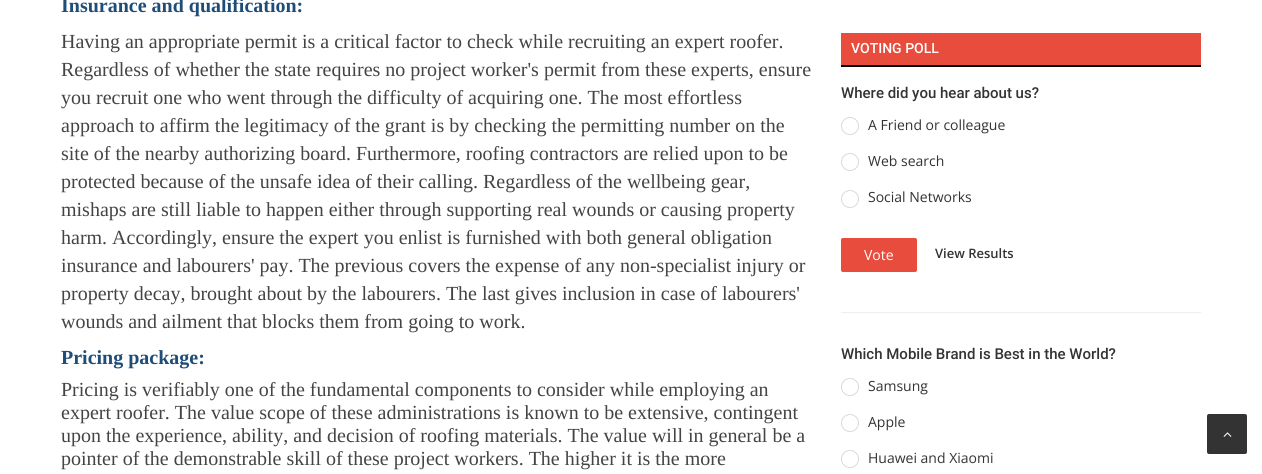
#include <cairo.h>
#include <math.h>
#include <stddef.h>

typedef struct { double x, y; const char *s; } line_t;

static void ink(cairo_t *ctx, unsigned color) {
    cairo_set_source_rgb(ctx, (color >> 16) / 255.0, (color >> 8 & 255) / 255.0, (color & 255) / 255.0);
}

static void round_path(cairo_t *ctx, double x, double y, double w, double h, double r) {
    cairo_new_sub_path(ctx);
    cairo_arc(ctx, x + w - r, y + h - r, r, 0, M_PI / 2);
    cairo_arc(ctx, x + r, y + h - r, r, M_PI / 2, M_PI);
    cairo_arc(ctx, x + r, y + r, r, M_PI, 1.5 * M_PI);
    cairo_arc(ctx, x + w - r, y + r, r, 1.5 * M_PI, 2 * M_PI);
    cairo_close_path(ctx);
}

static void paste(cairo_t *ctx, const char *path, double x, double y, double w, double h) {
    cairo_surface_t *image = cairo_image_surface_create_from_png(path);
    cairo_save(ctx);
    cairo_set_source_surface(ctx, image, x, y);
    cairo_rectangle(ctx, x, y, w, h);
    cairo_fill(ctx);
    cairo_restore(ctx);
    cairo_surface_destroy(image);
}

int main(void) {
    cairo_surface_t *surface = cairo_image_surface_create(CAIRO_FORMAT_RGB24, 1262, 474);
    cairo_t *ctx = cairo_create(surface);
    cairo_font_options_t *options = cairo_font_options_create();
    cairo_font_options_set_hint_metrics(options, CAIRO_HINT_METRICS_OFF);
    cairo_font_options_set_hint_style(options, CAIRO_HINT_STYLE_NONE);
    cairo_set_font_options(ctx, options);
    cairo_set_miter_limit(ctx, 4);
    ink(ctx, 0xFFFFFF);
    cairo_paint(ctx);
    cairo_select_font_face(ctx, "Liberation Serif", CAIRO_FONT_SLANT_NORMAL, CAIRO_FONT_WEIGHT_BOLD);
    cairo_set_font_size(ctx, 20);
    ink(ctx, 0x1F4D78);
    cairo_move_to(ctx, 61, 12);
    cairo_show_text(ctx, "Insurance and qualification:");
    cairo_select_font_face(ctx, "Liberation Serif", CAIRO_FONT_SLANT_NORMAL, CAIRO_FONT_WEIGHT_NORMAL);
    ink(ctx, 0x444444);
    {
        static const line_t items[] = {
            {61, 48, "Having an appropriate permit is a critical factor to check while recruiting an expert roofer."},
            {61, 76, "Regardless of whether the state requires no project worker's permit from these experts, ensure"},
            {61, 104, "you recruit one who went through the difficulty of acquiring one. The most effortless"},
            {61, 132, "approach to affirm the legitimacy of the grant is by checking the permitting number on the"},
            {61, 160, "site of the nearby authorizing board. Furthermore, roofing contractors are relied upon to be"},
            {61, 188, "protected because of the unsafe idea of their calling. Regardless of the wellbeing gear,"},
            {61, 216, "mishaps are still liable to happen either through supporting real wounds or causing property"},
            {61, 244, "harm. Accordingly, ensure the expert you enlist is furnished with both general obligation"},
            {61, 272, "insurance and labourers' pay. The previous covers the expense of any non-specialist injury or"},
            {61, 300, "property decay, brought about by the labourers. The last gives inclusion in case of labourers'"},
            {61, 328, "wounds and ailment that blocks them from going to work."},
        };
        for (size_t i = 0; i < sizeof items / sizeof *items; i++) {
            cairo_move_to(ctx, items[i].x, items[i].y);
            cairo_show_text(ctx, items[i].s);
        }
    }
    cairo_select_font_face(ctx, "Liberation Serif", CAIRO_FONT_SLANT_NORMAL, CAIRO_FONT_WEIGHT_BOLD);
    ink(ctx, 0x1F4D78);
    cairo_move_to(ctx, 61, 364);
    cairo_show_text(ctx, "Pricing package:");
    cairo_select_font_face(ctx, "Liberation Serif", CAIRO_FONT_SLANT_NORMAL, CAIRO_FONT_WEIGHT_NORMAL);
    ink(ctx, 0x444444);
    {
        static const line_t items[] = {
            {61, 396, "Pricing is verifiably one of the fundamental components to consider while employing an"},
            {61, 419, "expert roofer. The value scope of these administrations is known to be extensive, contingent"},
            {61, 442, "upon the experience, ability, and decision of roofing materials. The value will in general be a"},
            {61, 465, "pointer of the demonstrable skill of these project workers. The higher it is the more"},
        };
        for (size_t i = 0; i < sizeof items / sizeof *items; i++) {
            cairo_move_to(ctx, items[i].x, items[i].y);
            cairo_show_text(ctx, items[i].s);
        }
    }
    ink(ctx, 0xE74C3C);
    cairo_rectangle(ctx, 841, 33, 360, 32);
    cairo_fill(ctx);
    ink(ctx, 0x000000);
    cairo_rectangle(ctx, 841, 65, 360, 2);
    cairo_fill(ctx);
    cairo_select_font_face(ctx, "Roboto Medium", CAIRO_FONT_SLANT_NORMAL, CAIRO_FONT_WEIGHT_NORMAL);
    cairo_set_font_size(ctx, 14);
    ink(ctx, 0xFFFFFF);
    cairo_move_to(ctx, 851, 53);
    cairo_show_text(ctx, "VOTING POLL");
    ink(ctx, 0xEEEEEE);
    cairo_rectangle(ctx, 841, 312, 360, 1);
    cairo_fill(ctx);
    cairo_set_font_size(ctx, 15);
    ink(ctx, 0x333333);
    cairo_move_to(ctx, 841, 98);
    cairo_show_text(ctx, "Where did you hear about us?");
    paste(ctx, "media/1.png", 841, 117, 18, 18);
    cairo_select_font_face(ctx, "Open Sans", CAIRO_FONT_SLANT_NORMAL, CAIRO_FONT_WEIGHT_NORMAL);
    cairo_set_font_size(ctx, 14);
    cairo_move_to(ctx, 868, 130);
    cairo_show_text(ctx, "A Friend or colleague");
    paste(ctx, "media/1.png", 841, 153, 18, 18);
    cairo_move_to(ctx, 868, 166);
    cairo_show_text(ctx, "Web search");
    paste(ctx, "media/1.png", 841, 190, 18, 18);
    cairo_move_to(ctx, 868, 202);
    cairo_show_text(ctx, "Social Networks");
    ink(ctx, 0xE74C3C);
    round_path(ctx, 841.5, 238.5, 75, 33, 1.5);
    cairo_fill_preserve(ctx);
    cairo_set_line_width(ctx, 1);
    cairo_stroke(ctx);
    ink(ctx, 0xFFFFFF);
    cairo_move_to(ctx, 864, 260);
    cairo_show_text(ctx, "Vote");
    cairo_select_font_face(ctx, "Open Sans SemiBold", CAIRO_FONT_SLANT_NORMAL, CAIRO_FONT_WEIGHT_NORMAL);
    cairo_set_font_size(ctx, 13);
    ink(ctx, 0x333333);
    cairo_move_to(ctx, 935, 258);
    cairo_show_text(ctx, "View Results");
    cairo_select_font_face(ctx, "Roboto Medium", CAIRO_FONT_SLANT_NORMAL, CAIRO_FONT_WEIGHT_NORMAL);
    cairo_set_font_size(ctx, 15);
    cairo_move_to(ctx, 841, 359);
    cairo_show_text(ctx, "Which Mobile Brand is Best in the World?");
    paste(ctx, "media/1.png", 841, 378, 18, 18);
    cairo_select_font_face(ctx, "Open Sans", CAIRO_FONT_SLANT_NORMAL, CAIRO_FONT_WEIGHT_NORMAL);
    cairo_set_font_size(ctx, 14);
    cairo_move_to(ctx, 868, 391);
    cairo_show_text(ctx, "Samsung");
    paste(ctx, "media/1.png", 841, 414, 18, 18);
    cairo_move_to(ctx, 868, 427);
    cairo_show_text(ctx, "Apple");
    paste(ctx, "media/1.png", 841, 450, 18, 18);
    cairo_move_to(ctx, 868, 463);
    cairo_show_text(ctx, "Huawei and Xiaomi");
    round_path(ctx, 1207, 414, 40, 40, 2);
    cairo_fill(ctx);
    paste(ctx, "media/2.png", 1223, 432, 9, 5);
    cairo_surface_write_to_png(surface, "image.png");
    cairo_font_options_destroy(options);
    cairo_destroy(ctx);
    cairo_surface_destroy(surface);
    return 0;
}
